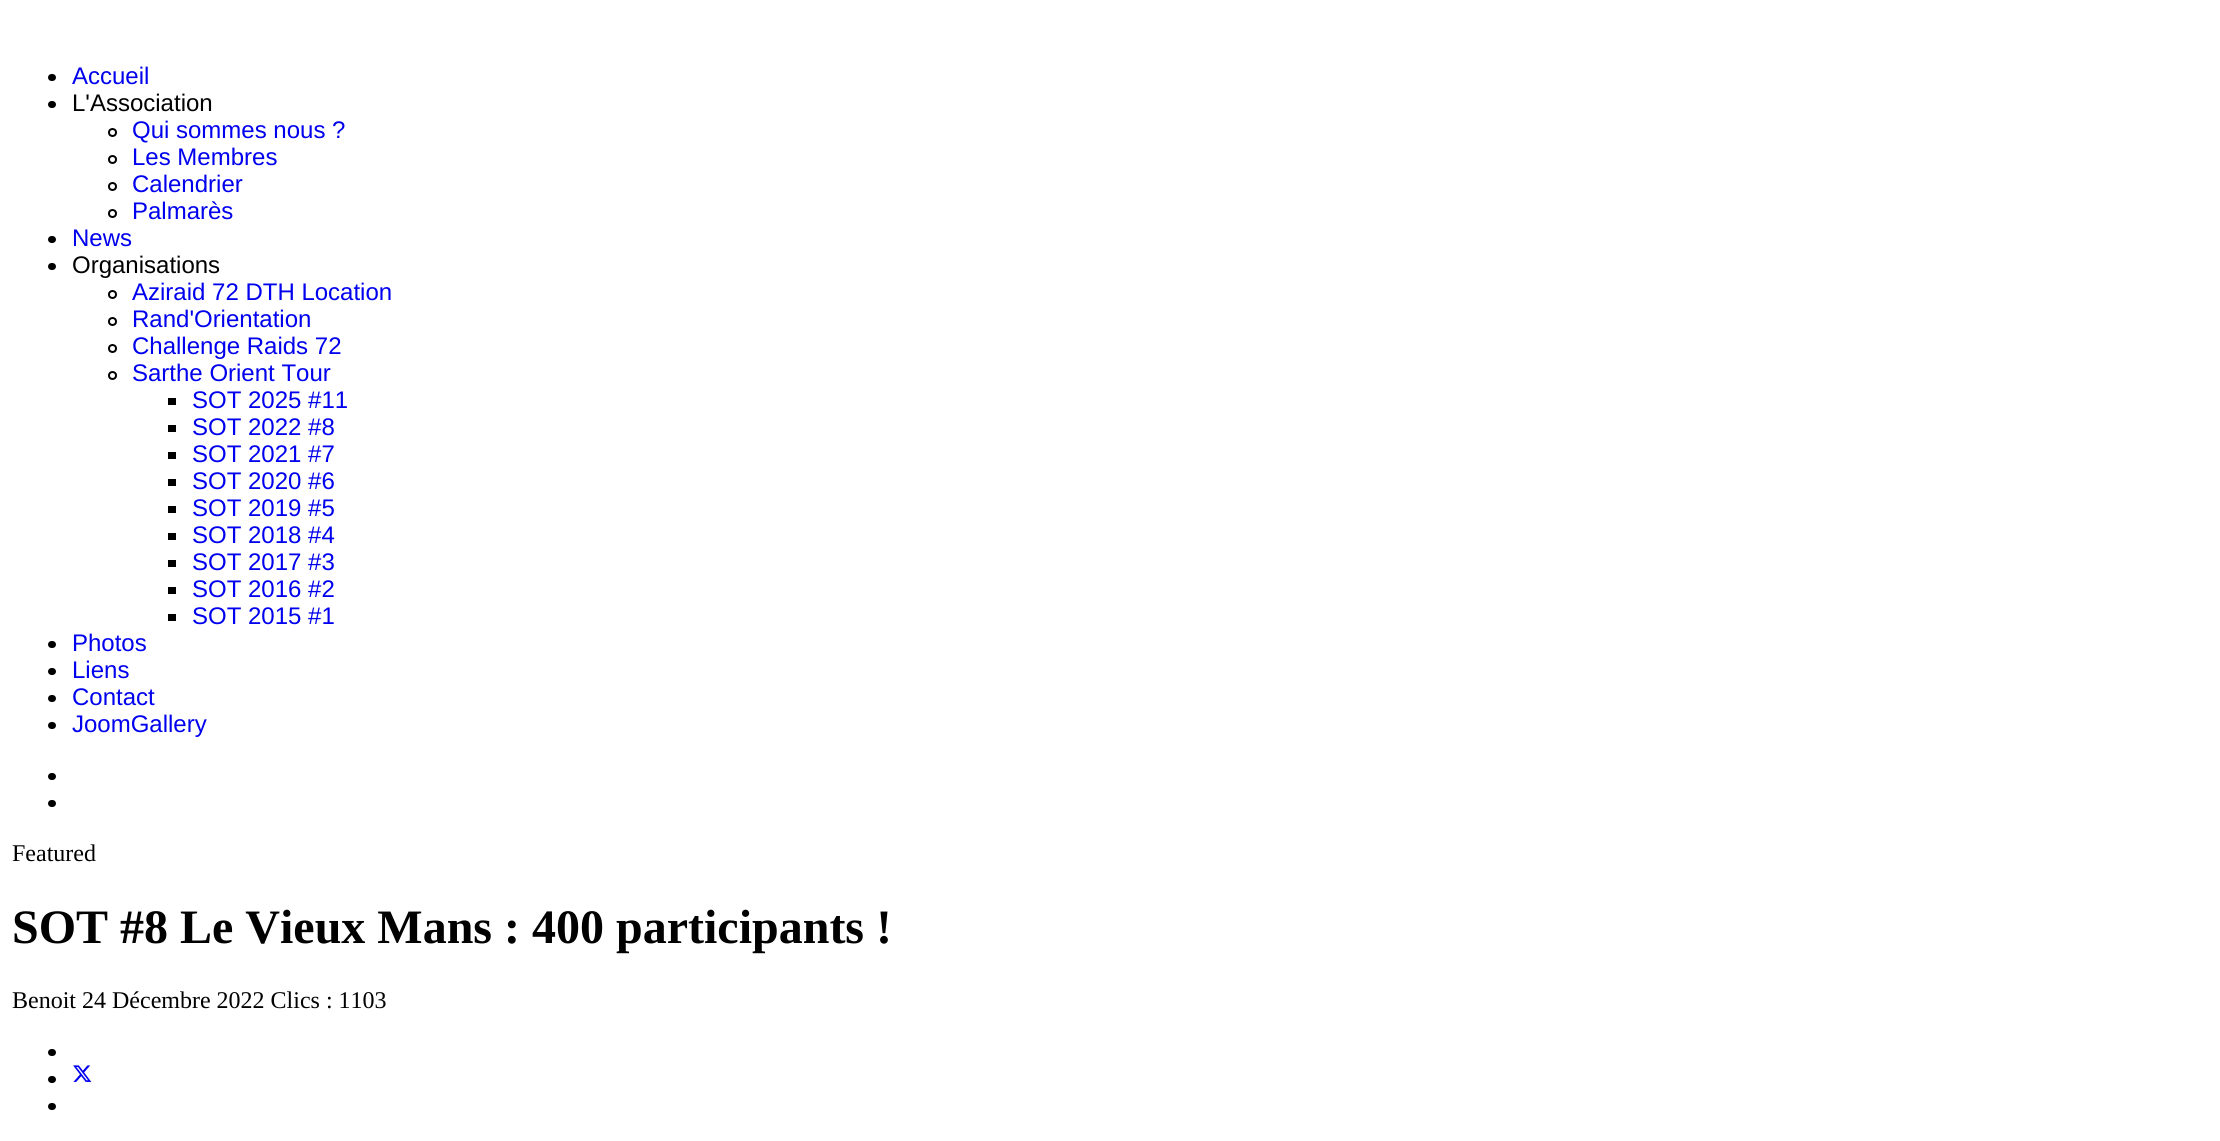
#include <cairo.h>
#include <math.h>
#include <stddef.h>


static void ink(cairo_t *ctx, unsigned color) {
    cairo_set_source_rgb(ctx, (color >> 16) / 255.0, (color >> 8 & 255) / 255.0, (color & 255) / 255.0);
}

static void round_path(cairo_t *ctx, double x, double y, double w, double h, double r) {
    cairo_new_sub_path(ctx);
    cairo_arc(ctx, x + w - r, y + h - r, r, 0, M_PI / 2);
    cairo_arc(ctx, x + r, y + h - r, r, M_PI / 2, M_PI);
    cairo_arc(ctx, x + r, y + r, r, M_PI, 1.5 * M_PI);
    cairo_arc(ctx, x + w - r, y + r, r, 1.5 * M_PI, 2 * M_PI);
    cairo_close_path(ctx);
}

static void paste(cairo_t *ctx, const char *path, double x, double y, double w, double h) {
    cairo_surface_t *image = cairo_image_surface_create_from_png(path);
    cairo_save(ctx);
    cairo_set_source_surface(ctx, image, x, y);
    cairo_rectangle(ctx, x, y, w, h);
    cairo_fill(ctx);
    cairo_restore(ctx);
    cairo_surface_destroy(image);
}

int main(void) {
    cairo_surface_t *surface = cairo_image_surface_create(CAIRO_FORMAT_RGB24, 2220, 1141);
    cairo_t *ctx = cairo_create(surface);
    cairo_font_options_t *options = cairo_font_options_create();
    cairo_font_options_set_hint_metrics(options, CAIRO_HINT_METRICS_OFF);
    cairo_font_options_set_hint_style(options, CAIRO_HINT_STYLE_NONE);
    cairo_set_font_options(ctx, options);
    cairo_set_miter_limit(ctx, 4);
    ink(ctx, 0xFFFFFF);
    cairo_paint(ctx);
    ink(ctx, 0x000000);
    round_path(ctx, 48, 74, 8, 7, 3.5);
    cairo_fill(ctx);
    cairo_select_font_face(ctx, "Liberation Sans", CAIRO_FONT_SLANT_NORMAL, CAIRO_FONT_WEIGHT_NORMAL);
    cairo_set_font_size(ctx, 24);
    ink(ctx, 0x0000EE);
    cairo_move_to(ctx, 72, 84);
    cairo_show_text(ctx, "Accueil");
    ink(ctx, 0x000000);
    round_path(ctx, 48, 101, 8, 7, 3.5);
    cairo_fill(ctx);
    cairo_move_to(ctx, 72, 111);
    cairo_show_text(ctx, "L'Association");
    cairo_new_path(ctx);
    cairo_arc(ctx, 112.5, 132.5, 3.5, 0, 2 * M_PI);
    cairo_stroke(ctx);
    ink(ctx, 0x0000EE);
    cairo_move_to(ctx, 132, 138);
    cairo_show_text(ctx, "Qui sommes nous ?");
    cairo_new_path(ctx);
    cairo_arc(ctx, 112.5, 159.5, 3.5, 0, 2 * M_PI);
    ink(ctx, 0x000000);
    cairo_stroke(ctx);
    ink(ctx, 0x0000EE);
    cairo_move_to(ctx, 132, 165);
    cairo_show_text(ctx, "Les Membres");
    cairo_new_path(ctx);
    cairo_arc(ctx, 112.5, 186.5, 3.5, 0, 2 * M_PI);
    ink(ctx, 0x000000);
    cairo_stroke(ctx);
    ink(ctx, 0x0000EE);
    cairo_move_to(ctx, 132, 192);
    cairo_show_text(ctx, "Calendrier");
    cairo_new_path(ctx);
    cairo_arc(ctx, 112.5, 213.5, 3.5, 0, 2 * M_PI);
    ink(ctx, 0x000000);
    cairo_stroke(ctx);
    ink(ctx, 0x0000EE);
    cairo_move_to(ctx, 132, 219);
    cairo_show_text(ctx, "Palmarès");
    ink(ctx, 0x000000);
    round_path(ctx, 48, 236, 8, 7, 3.5);
    cairo_fill(ctx);
    ink(ctx, 0x0000EE);
    cairo_move_to(ctx, 72, 246);
    cairo_show_text(ctx, "News");
    ink(ctx, 0x000000);
    round_path(ctx, 48, 263, 8, 7, 3.5);
    cairo_fill(ctx);
    cairo_move_to(ctx, 72, 273);
    cairo_show_text(ctx, "Organisations");
    cairo_new_path(ctx);
    cairo_arc(ctx, 112.5, 294.5, 3.5, 0, 2 * M_PI);
    cairo_stroke(ctx);
    ink(ctx, 0x0000EE);
    cairo_move_to(ctx, 132, 300);
    cairo_show_text(ctx, "Aziraid 72 DTH Location");
    cairo_new_path(ctx);
    cairo_arc(ctx, 112.5, 321.5, 3.5, 0, 2 * M_PI);
    ink(ctx, 0x000000);
    cairo_stroke(ctx);
    ink(ctx, 0x0000EE);
    cairo_move_to(ctx, 132, 327);
    cairo_show_text(ctx, "Rand'Orientation");
    cairo_new_path(ctx);
    cairo_arc(ctx, 112.5, 348.5, 3.5, 0, 2 * M_PI);
    ink(ctx, 0x000000);
    cairo_stroke(ctx);
    ink(ctx, 0x0000EE);
    cairo_move_to(ctx, 132, 354);
    cairo_show_text(ctx, "Challenge Raids 72");
    cairo_new_path(ctx);
    cairo_arc(ctx, 112.5, 375.5, 3.5, 0, 2 * M_PI);
    ink(ctx, 0x000000);
    cairo_stroke(ctx);
    ink(ctx, 0x0000EE);
    cairo_move_to(ctx, 132, 381);
    cairo_show_text(ctx, "Sarthe Orient Tour");
    ink(ctx, 0x000000);
    cairo_rectangle(ctx, 168, 398, 8, 7);
    cairo_fill(ctx);
    ink(ctx, 0x0000EE);
    cairo_move_to(ctx, 192, 408);
    cairo_show_text(ctx, "SOT 2025 #11");
    ink(ctx, 0x000000);
    cairo_rectangle(ctx, 168, 425, 8, 7);
    cairo_fill(ctx);
    ink(ctx, 0x0000EE);
    cairo_move_to(ctx, 192, 435);
    cairo_show_text(ctx, "SOT 2022 #8");
    ink(ctx, 0x000000);
    cairo_rectangle(ctx, 168, 452, 8, 7);
    cairo_fill(ctx);
    ink(ctx, 0x0000EE);
    cairo_move_to(ctx, 192, 462);
    cairo_show_text(ctx, "SOT 2021 #7");
    ink(ctx, 0x000000);
    cairo_rectangle(ctx, 168, 479, 8, 7);
    cairo_fill(ctx);
    ink(ctx, 0x0000EE);
    cairo_move_to(ctx, 192, 489);
    cairo_show_text(ctx, "SOT 2020 #6");
    ink(ctx, 0x000000);
    cairo_rectangle(ctx, 168, 506, 8, 7);
    cairo_fill(ctx);
    ink(ctx, 0x0000EE);
    cairo_move_to(ctx, 192, 516);
    cairo_show_text(ctx, "SOT 2019 #5");
    ink(ctx, 0x000000);
    cairo_rectangle(ctx, 168, 533, 8, 7);
    cairo_fill(ctx);
    ink(ctx, 0x0000EE);
    cairo_move_to(ctx, 192, 543);
    cairo_show_text(ctx, "SOT 2018 #4");
    ink(ctx, 0x000000);
    cairo_rectangle(ctx, 168, 560, 8, 7);
    cairo_fill(ctx);
    ink(ctx, 0x0000EE);
    cairo_move_to(ctx, 192, 570);
    cairo_show_text(ctx, "SOT 2017 #3");
    ink(ctx, 0x000000);
    cairo_rectangle(ctx, 168, 587, 8, 7);
    cairo_fill(ctx);
    ink(ctx, 0x0000EE);
    cairo_move_to(ctx, 192, 597);
    cairo_show_text(ctx, "SOT 2016 #2");
    ink(ctx, 0x000000);
    cairo_rectangle(ctx, 168, 614, 8, 7);
    cairo_fill(ctx);
    ink(ctx, 0x0000EE);
    cairo_move_to(ctx, 192, 624);
    cairo_show_text(ctx, "SOT 2015 #1");
    ink(ctx, 0x000000);
    round_path(ctx, 48, 641, 8, 7, 3.5);
    cairo_fill(ctx);
    ink(ctx, 0x0000EE);
    cairo_move_to(ctx, 72, 651);
    cairo_show_text(ctx, "Photos");
    ink(ctx, 0x000000);
    round_path(ctx, 48, 668, 8, 7, 3.5);
    cairo_fill(ctx);
    ink(ctx, 0x0000EE);
    cairo_move_to(ctx, 72, 678);
    cairo_show_text(ctx, "Liens");
    ink(ctx, 0x000000);
    round_path(ctx, 48, 695, 8, 7, 3.5);
    cairo_fill(ctx);
    ink(ctx, 0x0000EE);
    cairo_move_to(ctx, 72, 705);
    cairo_show_text(ctx, "Contact");
    ink(ctx, 0x000000);
    round_path(ctx, 48, 722, 8, 7, 3.5);
    cairo_fill(ctx);
    ink(ctx, 0x0000EE);
    cairo_move_to(ctx, 72, 732);
    cairo_show_text(ctx, "JoomGallery");
    ink(ctx, 0x000000);
    round_path(ctx, 48, 773, 8, 7, 3.5);
    cairo_fill(ctx);
    round_path(ctx, 48, 800, 8, 7, 3.5);
    cairo_fill(ctx);
    cairo_select_font_face(ctx, "Liberation Serif", CAIRO_FONT_SLANT_NORMAL, CAIRO_FONT_WEIGHT_NORMAL);
    cairo_move_to(ctx, 12, 861);
    cairo_show_text(ctx, "Featured");
    cairo_select_font_face(ctx, "Liberation Serif", CAIRO_FONT_SLANT_NORMAL, CAIRO_FONT_WEIGHT_BOLD);
    cairo_set_font_size(ctx, 48);
    cairo_move_to(ctx, 12, 943);
    cairo_show_text(ctx, "SOT #8 Le Vieux Mans : 400 participants !");
    cairo_select_font_face(ctx, "Liberation Serif", CAIRO_FONT_SLANT_NORMAL, CAIRO_FONT_WEIGHT_NORMAL);
    cairo_set_font_size(ctx, 24);
    cairo_move_to(ctx, 12, 1008);
    cairo_show_text(ctx, "Benoit 24 Décembre 2022 Clics : 1103");
    round_path(ctx, 48, 1049, 8, 7, 3.5);
    cairo_fill(ctx);
    round_path(ctx, 48, 1076, 8, 7, 3.5);
    cairo_fill(ctx);
    paste(ctx, "media/1.png", 73, 1065, 19, 17);
    round_path(ctx, 48, 1103, 8, 7, 3.5);
    cairo_fill(ctx);
    cairo_surface_write_to_png(surface, "image.png");
    cairo_font_options_destroy(options);
    cairo_destroy(ctx);
    cairo_surface_destroy(surface);
    return 0;
}
